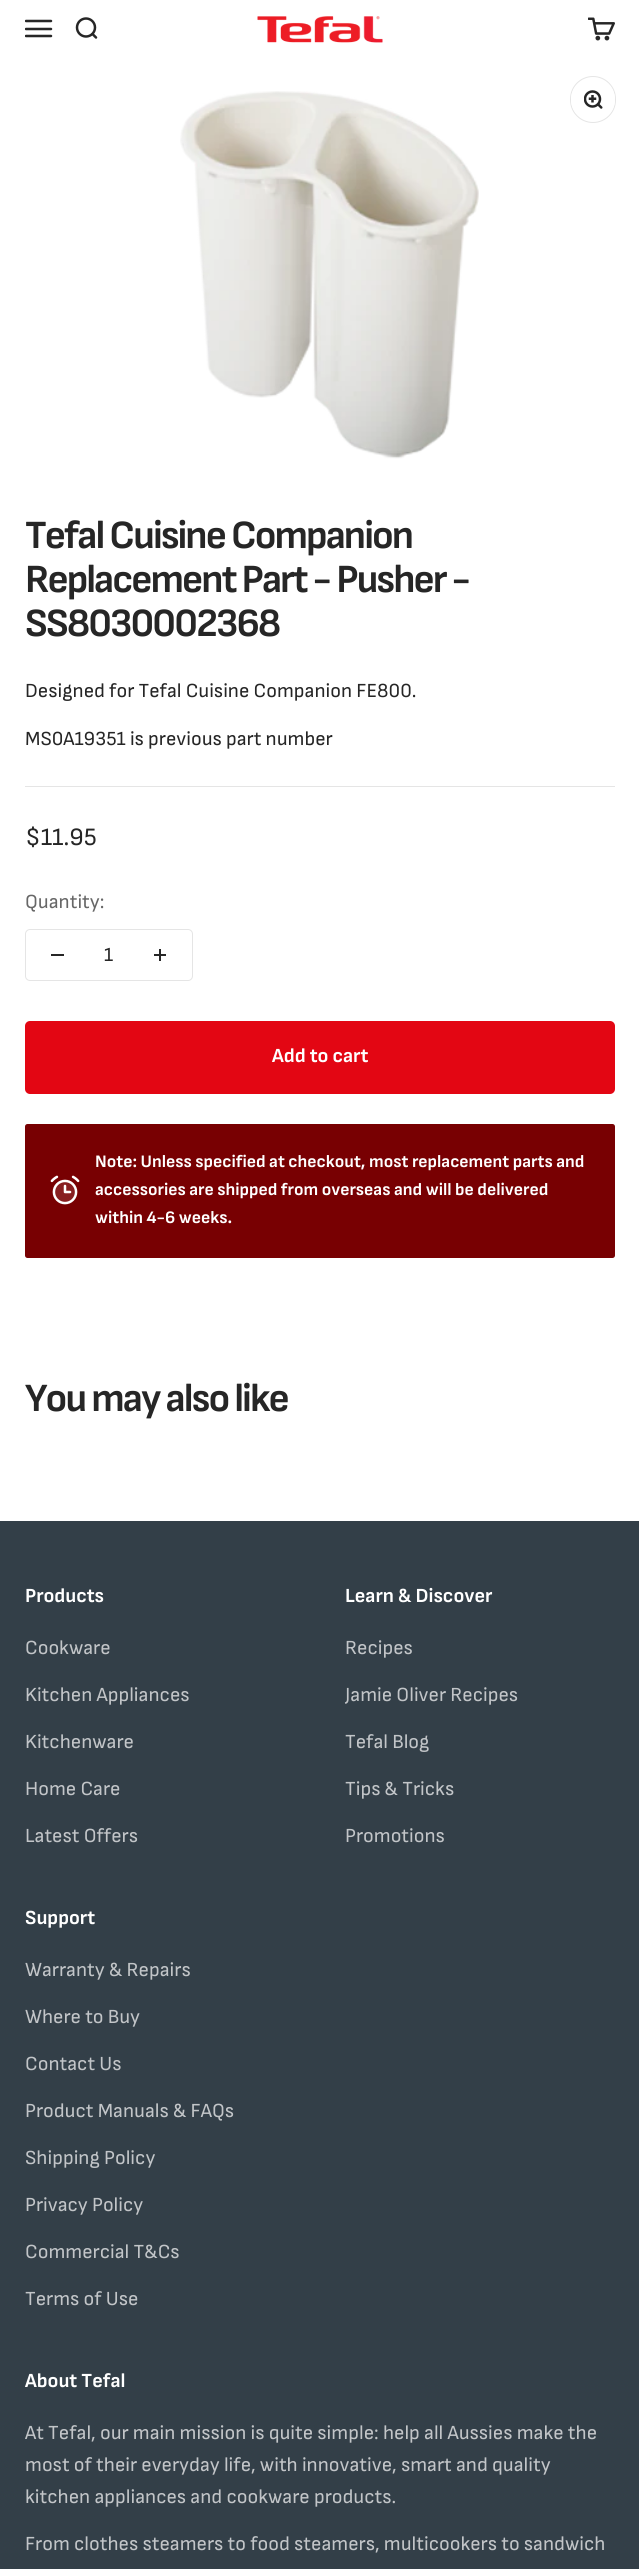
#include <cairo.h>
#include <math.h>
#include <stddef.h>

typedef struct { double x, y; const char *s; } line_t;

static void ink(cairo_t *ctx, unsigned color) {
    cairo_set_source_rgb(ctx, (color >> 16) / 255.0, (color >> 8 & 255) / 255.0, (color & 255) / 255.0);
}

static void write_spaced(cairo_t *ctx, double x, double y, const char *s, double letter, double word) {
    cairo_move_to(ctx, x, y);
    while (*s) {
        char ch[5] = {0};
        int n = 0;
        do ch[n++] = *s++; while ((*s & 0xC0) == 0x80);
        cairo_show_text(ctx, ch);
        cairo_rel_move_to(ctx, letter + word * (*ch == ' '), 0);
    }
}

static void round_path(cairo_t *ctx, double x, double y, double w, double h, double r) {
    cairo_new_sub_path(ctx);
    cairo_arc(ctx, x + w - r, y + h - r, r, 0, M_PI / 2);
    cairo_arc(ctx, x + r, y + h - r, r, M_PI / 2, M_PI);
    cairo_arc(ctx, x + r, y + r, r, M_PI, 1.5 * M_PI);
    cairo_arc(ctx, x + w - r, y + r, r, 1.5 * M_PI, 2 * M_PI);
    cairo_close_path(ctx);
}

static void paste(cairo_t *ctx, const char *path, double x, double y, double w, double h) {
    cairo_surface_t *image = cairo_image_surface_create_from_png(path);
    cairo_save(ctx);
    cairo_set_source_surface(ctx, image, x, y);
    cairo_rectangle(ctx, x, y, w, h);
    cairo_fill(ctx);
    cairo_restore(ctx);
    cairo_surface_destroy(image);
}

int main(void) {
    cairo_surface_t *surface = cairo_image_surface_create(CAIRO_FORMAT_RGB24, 639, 2569);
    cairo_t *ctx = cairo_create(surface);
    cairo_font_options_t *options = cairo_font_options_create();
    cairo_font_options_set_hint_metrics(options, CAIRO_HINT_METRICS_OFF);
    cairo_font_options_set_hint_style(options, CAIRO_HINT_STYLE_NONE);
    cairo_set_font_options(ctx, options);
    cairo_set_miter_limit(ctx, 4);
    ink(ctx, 0xFFFFFF);
    cairo_paint(ctx);
    cairo_save(ctx);
    cairo_rectangle(ctx, 25, 15, 28, 28);
    cairo_clip(ctx);
    cairo_new_path(ctx);
    cairo_move_to(ctx, 26, 21);
    cairo_line_to(ctx, 51, 21);
    cairo_move_to(ctx, 26, 29);
    cairo_line_to(ctx, 51, 29);
    cairo_move_to(ctx, 26, 36);
    cairo_line_to(ctx, 51, 36);
    ink(ctx, 0x262626);
    cairo_set_line_width(ctx, 2.5);
    cairo_set_line_cap(ctx, CAIRO_LINE_CAP_ROUND);
    cairo_stroke(ctx);
    cairo_restore(ctx);
    cairo_arc(ctx, 86, 27.5, 9, 0, 2 * M_PI);
    ink(ctx, 0x262626);
    cairo_set_line_width(ctx, 2.5);
    cairo_stroke(ctx);
    cairo_new_path(ctx);
    cairo_move_to(ctx, 92.5, 34);
    cairo_line_to(ctx, 96, 37.5);
    cairo_set_line_cap(ctx, CAIRO_LINE_CAP_ROUND);
    cairo_set_line_join(ctx, CAIRO_LINE_JOIN_ROUND);
    cairo_stroke(ctx);
    paste(ctx, "media/1.png", 257, 16, 126, 27);
    paste(ctx, "media/2.png", 588, 17, 27, 24);
    paste(ctx, "media/3.png", 180, 91, 299, 368);
    round_path(ctx, 570.5, 76.5, 45, 46, 22.5);
    ink(ctx, 0xE5E5E5);
    cairo_set_line_width(ctx, 1);
    cairo_set_line_cap(ctx, CAIRO_LINE_CAP_BUTT);
    cairo_set_line_join(ctx, CAIRO_LINE_JOIN_MITER);
    cairo_stroke(ctx);
    ink(ctx, 0xFFFFFF);
    round_path(ctx, 571, 78, 44, 43, 21.5);
    cairo_fill(ctx);
    paste(ctx, "media/4.png", 584, 90, 19, 19);
    cairo_select_font_face(ctx, "Sofia Sans", CAIRO_FONT_SLANT_NORMAL, CAIRO_FONT_WEIGHT_BOLD);
    cairo_set_font_size(ctx, 40);
    ink(ctx, 0x262626);
    {
        static const line_t items[] = {
            {25, 548, "Tefal Cuisine Companion"},
            {25, 592, "Replacement Part - Pusher -"},
            {25, 636, "SS8030002368"},
        };
        for (size_t i = 0; i < sizeof items / sizeof *items; i++) {
            write_spaced(ctx, items[i].x, items[i].y, items[i].s, -2, 0);
        }
    }
    cairo_select_font_face(ctx, "Sofia Sans", CAIRO_FONT_SLANT_NORMAL, CAIRO_FONT_WEIGHT_NORMAL);
    cairo_set_font_size(ctx, 20);
    cairo_move_to(ctx, 25, 697);
    cairo_show_text(ctx, "Designed for Tefal Cuisine Companion FE800.");
    cairo_move_to(ctx, 25, 745);
    cairo_show_text(ctx, "MS0A19351 is previous part number");
    ink(ctx, 0xE5E5E5);
    cairo_rectangle(ctx, 25, 786, 590, 1);
    cairo_fill(ctx);
    cairo_set_font_size(ctx, 25);
    ink(ctx, 0x262626);
    cairo_move_to(ctx, 25, 845);
    cairo_show_text(ctx, "$11.95");
    cairo_set_font_size(ctx, 20);
    ink(ctx, 0x676767);
    cairo_move_to(ctx, 25, 908);
    cairo_show_text(ctx, "Quantity:");
    round_path(ctx, 25.5, 929.5, 167, 51, 4.5);
    ink(ctx, 0xE5E5E5);
    cairo_stroke(ctx);
    ink(ctx, 0x262626);
    cairo_rectangle(ctx, 51, 954, 13, 2);
    cairo_fill(ctx);
    cairo_move_to(ctx, 104, 961);
    cairo_show_text(ctx, "1");
    cairo_rectangle(ctx, 159, 949, 2, 12);
    cairo_fill(ctx);
    cairo_rectangle(ctx, 154, 954, 12, 2);
    cairo_fill(ctx);
    ink(ctx, 0xE30613);
    round_path(ctx, 25, 1021, 590, 73, 5);
    cairo_fill(ctx);
    cairo_select_font_face(ctx, "Sofia Sans", CAIRO_FONT_SLANT_NORMAL, CAIRO_FONT_WEIGHT_BOLD);
    ink(ctx, 0xFFFFFF);
    cairo_move_to(ctx, 272, 1062);
    cairo_show_text(ctx, "Add to cart");
    ink(ctx, 0x780002);
    round_path(ctx, 25, 1124, 590, 134, 2.5);
    cairo_fill(ctx);
    paste(ctx, "media/5.png", 50, 1175, 30, 30);
    cairo_set_font_size(ctx, 17.5);
    ink(ctx, 0xFFFFFF);
    {
        static const line_t items[] = {
            {95, 1167, "Note: Unless specified at checkout, most replacement parts and"},
            {95, 1195, "accessories are shipped from overseas and will be delivered"},
            {95, 1223, "within 4-6 weeks."},
        };
        for (size_t i = 0; i < sizeof items / sizeof *items; i++) {
            cairo_move_to(ctx, items[i].x, items[i].y);
            cairo_show_text(ctx, items[i].s);
        }
    }
    cairo_set_font_size(ctx, 40);
    ink(ctx, 0x262626);
    write_spaced(ctx, 25, 1411, "You may also like", -2, 0);
    ink(ctx, 0x333F48);
    cairo_rectangle(ctx, 0, 1521, 639, 1048);
    cairo_fill(ctx);
    cairo_set_font_size(ctx, 20);
    ink(ctx, 0xFFFFFF);
    cairo_move_to(ctx, 25, 1602);
    cairo_show_text(ctx, "Products");
    cairo_select_font_face(ctx, "Sofia Sans", CAIRO_FONT_SLANT_NORMAL, CAIRO_FONT_WEIGHT_NORMAL);
    ink(ctx, 0xC2C5C8);
    {
        static const line_t items[] = {
            {25, 1654, "Cookware"},
            {25, 1701, "Kitchen Appliances"},
            {25, 1748, "Kitchenware"},
            {25, 1795, "Home Care"},
            {25, 1842, "Latest Offers"},
        };
        for (size_t i = 0; i < sizeof items / sizeof *items; i++) {
            cairo_move_to(ctx, items[i].x, items[i].y);
            cairo_show_text(ctx, items[i].s);
        }
    }
    cairo_select_font_face(ctx, "Sofia Sans", CAIRO_FONT_SLANT_NORMAL, CAIRO_FONT_WEIGHT_BOLD);
    ink(ctx, 0xFFFFFF);
    cairo_move_to(ctx, 345, 1602);
    cairo_show_text(ctx, "Learn & Discover");
    cairo_select_font_face(ctx, "Sofia Sans", CAIRO_FONT_SLANT_NORMAL, CAIRO_FONT_WEIGHT_NORMAL);
    ink(ctx, 0xC2C5C8);
    {
        static const line_t items[] = {
            {345, 1654, "Recipes"},
            {345, 1701, "Jamie Oliver Recipes"},
            {345, 1748, "Tefal Blog"},
            {345, 1795, "Tips & Tricks"},
            {345, 1842, "Promotions"},
        };
        for (size_t i = 0; i < sizeof items / sizeof *items; i++) {
            cairo_move_to(ctx, items[i].x, items[i].y);
            cairo_show_text(ctx, items[i].s);
        }
    }
    cairo_select_font_face(ctx, "Sofia Sans", CAIRO_FONT_SLANT_NORMAL, CAIRO_FONT_WEIGHT_BOLD);
    ink(ctx, 0xFFFFFF);
    cairo_move_to(ctx, 25, 1924);
    cairo_show_text(ctx, "Support");
    cairo_select_font_face(ctx, "Sofia Sans", CAIRO_FONT_SLANT_NORMAL, CAIRO_FONT_WEIGHT_NORMAL);
    ink(ctx, 0xC2C5C8);
    {
        static const line_t items[] = {
            {25, 1976, "Warranty & Repairs"},
            {25, 2023, "Where to Buy"},
            {25, 2070, "Contact Us"},
            {25, 2117, "Product Manuals & FAQs"},
            {25, 2164, "Shipping Policy"},
            {25, 2211, "Privacy Policy"},
            {25, 2258, "Commercial T&Cs"},
            {25, 2305, "Terms of Use"},
        };
        for (size_t i = 0; i < sizeof items / sizeof *items; i++) {
            cairo_move_to(ctx, items[i].x, items[i].y);
            cairo_show_text(ctx, items[i].s);
        }
    }
    cairo_select_font_face(ctx, "Sofia Sans", CAIRO_FONT_SLANT_NORMAL, CAIRO_FONT_WEIGHT_BOLD);
    ink(ctx, 0xFFFFFF);
    cairo_move_to(ctx, 25, 2387);
    cairo_show_text(ctx, "About Tefal");
    cairo_select_font_face(ctx, "Sofia Sans", CAIRO_FONT_SLANT_NORMAL, CAIRO_FONT_WEIGHT_NORMAL);
    ink(ctx, 0xC2C5C8);
    {
        static const line_t items[] = {
            {25, 2439, "At Tefal, our main mission is quite simple: help all Aussies make the"},
            {25, 2471, "most of their everyday life, with innovative, smart and quality"},
            {25, 2503, "kitchen appliances and cookware products."},
            {25, 2550, "From clothes steamers to food steamers, multicookers to sandwich"},
        };
        for (size_t i = 0; i < sizeof items / sizeof *items; i++) {
            cairo_move_to(ctx, items[i].x, items[i].y);
            cairo_show_text(ctx, items[i].s);
        }
    }
    cairo_surface_write_to_png(surface, "image.png");
    cairo_font_options_destroy(options);
    cairo_destroy(ctx);
    cairo_surface_destroy(surface);
    return 0;
}
